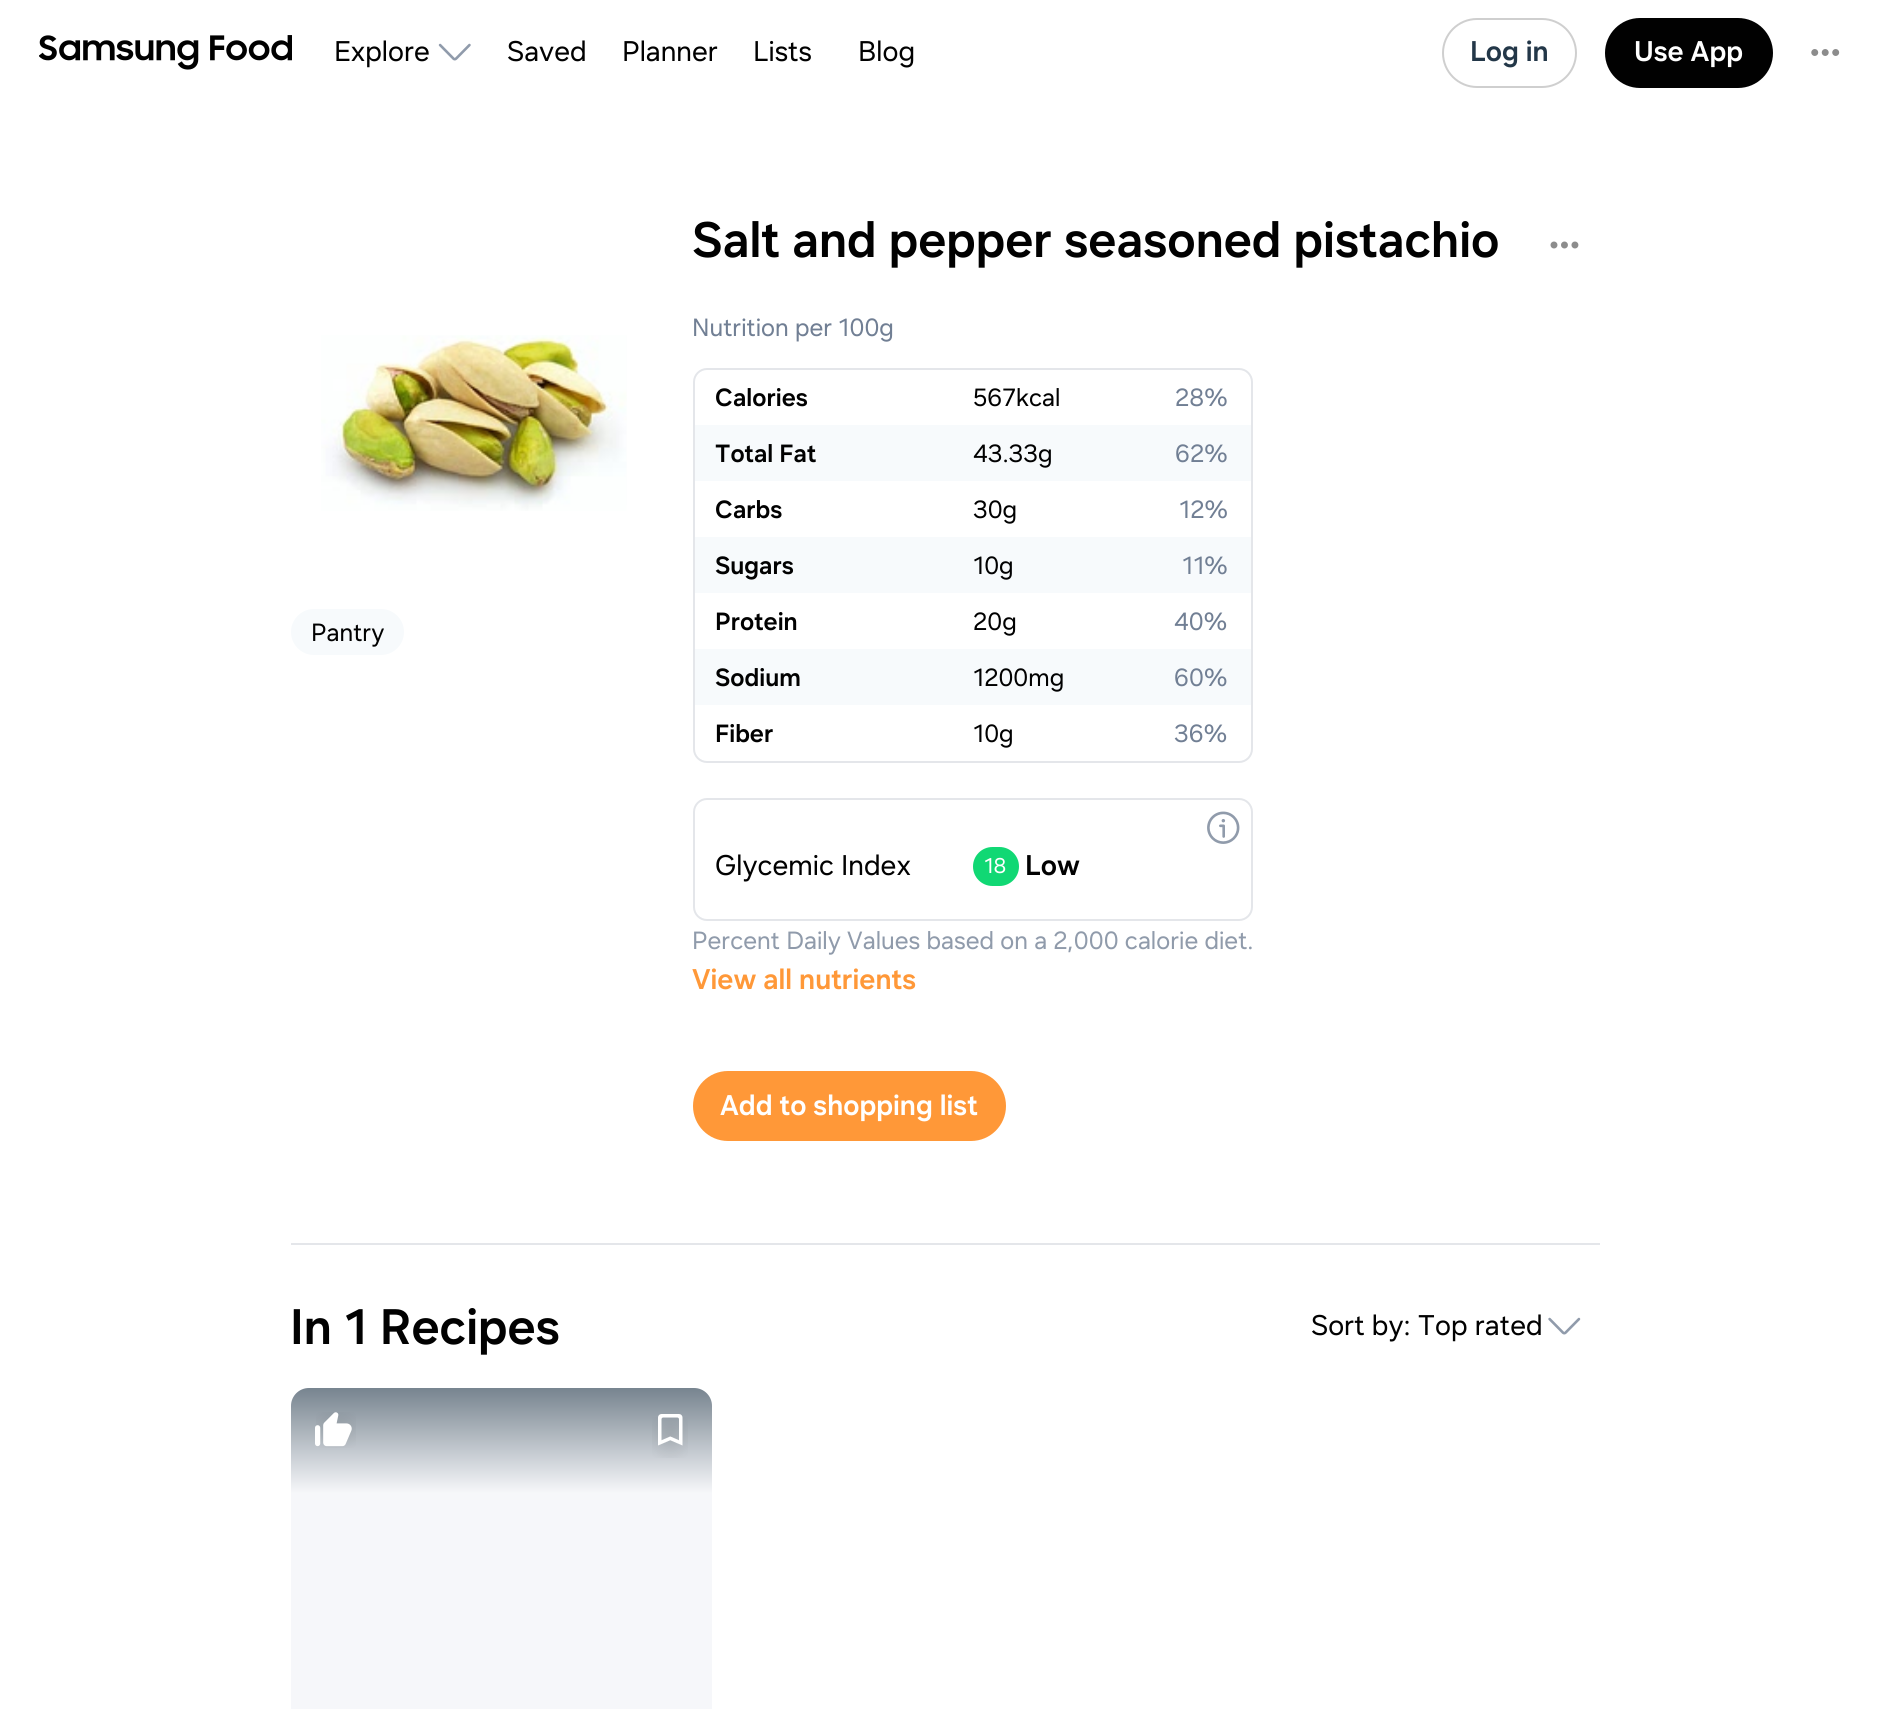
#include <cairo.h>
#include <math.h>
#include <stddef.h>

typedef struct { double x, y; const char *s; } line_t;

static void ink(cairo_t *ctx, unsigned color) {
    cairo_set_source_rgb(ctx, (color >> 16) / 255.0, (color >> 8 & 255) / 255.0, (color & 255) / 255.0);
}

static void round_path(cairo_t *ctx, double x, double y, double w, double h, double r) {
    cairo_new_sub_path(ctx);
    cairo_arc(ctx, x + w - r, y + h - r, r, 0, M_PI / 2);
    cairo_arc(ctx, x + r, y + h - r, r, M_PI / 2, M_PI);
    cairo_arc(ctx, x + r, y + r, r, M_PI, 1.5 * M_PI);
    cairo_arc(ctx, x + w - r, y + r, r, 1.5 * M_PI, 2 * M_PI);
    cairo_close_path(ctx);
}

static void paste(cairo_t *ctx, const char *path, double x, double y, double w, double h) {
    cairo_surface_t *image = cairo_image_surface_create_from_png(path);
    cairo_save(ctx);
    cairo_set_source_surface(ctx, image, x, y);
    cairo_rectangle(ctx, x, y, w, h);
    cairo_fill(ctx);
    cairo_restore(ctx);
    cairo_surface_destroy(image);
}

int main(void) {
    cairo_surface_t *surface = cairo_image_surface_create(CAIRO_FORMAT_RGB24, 1887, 1709);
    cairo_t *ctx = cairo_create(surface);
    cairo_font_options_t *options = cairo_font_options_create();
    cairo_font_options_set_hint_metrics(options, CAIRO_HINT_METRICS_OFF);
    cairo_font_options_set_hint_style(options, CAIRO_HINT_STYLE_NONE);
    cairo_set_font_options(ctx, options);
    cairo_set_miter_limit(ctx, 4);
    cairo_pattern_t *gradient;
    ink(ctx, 0xFFFFFF);
    cairo_paint(ctx);
    paste(ctx, "media/1.png", 39, 35, 253, 35);
    cairo_select_font_face(ctx, "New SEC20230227", CAIRO_FONT_SLANT_NORMAL, CAIRO_FONT_WEIGHT_NORMAL);
    cairo_set_font_size(ctx, 28);
    ink(ctx, 0x010101);
    cairo_move_to(ctx, 334, 61);
    cairo_show_text(ctx, "Explore");
    paste(ctx, "media/2.png", 438, 43, 33, 18);
    {
        static const line_t items[] = {
            {507, 61, "Saved"},
            {622, 61, "Planner"},
            {753, 61, "Lists"},
            {858, 61, "Blog"},
        };
        for (size_t i = 0; i < sizeof items / sizeof *items; i++) {
            cairo_move_to(ctx, items[i].x, items[i].y);
            cairo_show_text(ctx, items[i].s);
        }
    }
    round_path(ctx, 1443, 19, 133, 68, 34);
    ink(ctx, 0xCFCFCF);
    cairo_stroke(ctx);
    cairo_select_font_face(ctx, "New SEC20230227 SemiBold", CAIRO_FONT_SLANT_NORMAL, CAIRO_FONT_WEIGHT_NORMAL);
    ink(ctx, 0x233748);
    cairo_move_to(ctx, 1470, 61);
    cairo_show_text(ctx, "Log in");
    ink(ctx, 0x010101);
    round_path(ctx, 1606, 19, 166, 68, 34);
    cairo_fill_preserve(ctx);
    cairo_stroke(ctx);
    ink(ctx, 0xFFFFFF);
    cairo_move_to(ctx, 1634, 61);
    cairo_show_text(ctx, "Use App");
    paste(ctx, "media/3.png", 1811, 49, 29, 7);
    ink(ctx, 0xE4E6EA);
    cairo_rectangle(ctx, 291, 1243, 1309, 2);
    cairo_fill(ctx);
    paste(ctx, "media/4.png", 321, 335, 306, 176);
    ink(ctx, 0xF7FAFC);
    round_path(ctx, 291, 609, 113, 46, 23);
    cairo_fill(ctx);
    cairo_select_font_face(ctx, "New SEC20230227", CAIRO_FONT_SLANT_NORMAL, CAIRO_FONT_WEIGHT_NORMAL);
    cairo_set_font_size(ctx, 24.5);
    ink(ctx, 0x010101);
    cairo_move_to(ctx, 311, 641);
    cairo_show_text(ctx, "Pantry");
    cairo_select_font_face(ctx, "New SEC20230227 SemiBold", CAIRO_FONT_SLANT_NORMAL, CAIRO_FONT_WEIGHT_NORMAL);
    cairo_set_font_size(ctx, 49);
    cairo_move_to(ctx, 692, 257);
    cairo_show_text(ctx, "Salt and pepper seasoned pistachio");
    paste(ctx, "media/5.png", 1550, 241, 29, 8);
    cairo_select_font_face(ctx, "New SEC20230227", CAIRO_FONT_SLANT_NORMAL, CAIRO_FONT_WEIGHT_NORMAL);
    cairo_set_font_size(ctx, 24.5);
    ink(ctx, 0x717F94);
    cairo_move_to(ctx, 692, 336);
    cairo_show_text(ctx, "Nutrition per 100g");
    round_path(ctx, 694, 369, 558, 393, 13);
    ink(ctx, 0xE4E6EA);
    cairo_stroke(ctx);
    cairo_select_font_face(ctx, "New SEC20230227 SemiBold", CAIRO_FONT_SLANT_NORMAL, CAIRO_FONT_WEIGHT_NORMAL);
    ink(ctx, 0x010101);
    cairo_move_to(ctx, 715, 406);
    cairo_show_text(ctx, "Calories");
    cairo_select_font_face(ctx, "New SEC20230227", CAIRO_FONT_SLANT_NORMAL, CAIRO_FONT_WEIGHT_NORMAL);
    cairo_move_to(ctx, 973, 406);
    cairo_show_text(ctx, "567kcal");
    ink(ctx, 0x717F94);
    cairo_move_to(ctx, 1175, 406);
    cairo_show_text(ctx, "28%");
    ink(ctx, 0xF7FAFC);
    cairo_rectangle(ctx, 695, 425, 556, 56);
    cairo_fill(ctx);
    cairo_select_font_face(ctx, "New SEC20230227 SemiBold", CAIRO_FONT_SLANT_NORMAL, CAIRO_FONT_WEIGHT_NORMAL);
    ink(ctx, 0x010101);
    cairo_move_to(ctx, 715, 462);
    cairo_show_text(ctx, "Total Fat");
    cairo_select_font_face(ctx, "New SEC20230227", CAIRO_FONT_SLANT_NORMAL, CAIRO_FONT_WEIGHT_NORMAL);
    cairo_move_to(ctx, 973, 462);
    cairo_show_text(ctx, "43.33g");
    ink(ctx, 0x717F94);
    cairo_move_to(ctx, 1175, 462);
    cairo_show_text(ctx, "62%");
    cairo_select_font_face(ctx, "New SEC20230227 SemiBold", CAIRO_FONT_SLANT_NORMAL, CAIRO_FONT_WEIGHT_NORMAL);
    ink(ctx, 0x010101);
    cairo_move_to(ctx, 715, 518);
    cairo_show_text(ctx, "Carbs");
    cairo_select_font_face(ctx, "New SEC20230227", CAIRO_FONT_SLANT_NORMAL, CAIRO_FONT_WEIGHT_NORMAL);
    cairo_move_to(ctx, 973, 518);
    cairo_show_text(ctx, "30g");
    ink(ctx, 0x717F94);
    cairo_move_to(ctx, 1179, 518);
    cairo_show_text(ctx, "12%");
    ink(ctx, 0xF7FAFC);
    cairo_rectangle(ctx, 695, 537, 556, 56);
    cairo_fill(ctx);
    cairo_select_font_face(ctx, "New SEC20230227 SemiBold", CAIRO_FONT_SLANT_NORMAL, CAIRO_FONT_WEIGHT_NORMAL);
    ink(ctx, 0x010101);
    cairo_move_to(ctx, 715, 574);
    cairo_show_text(ctx, "Sugars");
    cairo_select_font_face(ctx, "New SEC20230227", CAIRO_FONT_SLANT_NORMAL, CAIRO_FONT_WEIGHT_NORMAL);
    cairo_move_to(ctx, 973, 574);
    cairo_show_text(ctx, "10g");
    ink(ctx, 0x717F94);
    cairo_move_to(ctx, 1182, 574);
    cairo_show_text(ctx, "11%");
    cairo_select_font_face(ctx, "New SEC20230227 SemiBold", CAIRO_FONT_SLANT_NORMAL, CAIRO_FONT_WEIGHT_NORMAL);
    ink(ctx, 0x010101);
    cairo_move_to(ctx, 715, 630);
    cairo_show_text(ctx, "Protein");
    cairo_select_font_face(ctx, "New SEC20230227", CAIRO_FONT_SLANT_NORMAL, CAIRO_FONT_WEIGHT_NORMAL);
    cairo_move_to(ctx, 973, 630);
    cairo_show_text(ctx, "20g");
    ink(ctx, 0x717F94);
    cairo_move_to(ctx, 1174, 630);
    cairo_show_text(ctx, "40%");
    ink(ctx, 0xF7FAFC);
    cairo_rectangle(ctx, 695, 649, 556, 56);
    cairo_fill(ctx);
    cairo_select_font_face(ctx, "New SEC20230227 SemiBold", CAIRO_FONT_SLANT_NORMAL, CAIRO_FONT_WEIGHT_NORMAL);
    ink(ctx, 0x010101);
    cairo_move_to(ctx, 715, 686);
    cairo_show_text(ctx, "Sodium");
    cairo_select_font_face(ctx, "New SEC20230227", CAIRO_FONT_SLANT_NORMAL, CAIRO_FONT_WEIGHT_NORMAL);
    cairo_move_to(ctx, 973, 686);
    cairo_show_text(ctx, "1200mg");
    ink(ctx, 0x717F94);
    cairo_move_to(ctx, 1174, 686);
    cairo_show_text(ctx, "60%");
    cairo_select_font_face(ctx, "New SEC20230227 SemiBold", CAIRO_FONT_SLANT_NORMAL, CAIRO_FONT_WEIGHT_NORMAL);
    ink(ctx, 0x010101);
    cairo_move_to(ctx, 715, 742);
    cairo_show_text(ctx, "Fiber");
    cairo_select_font_face(ctx, "New SEC20230227", CAIRO_FONT_SLANT_NORMAL, CAIRO_FONT_WEIGHT_NORMAL);
    cairo_move_to(ctx, 973, 742);
    cairo_show_text(ctx, "10g");
    ink(ctx, 0x717F94);
    cairo_move_to(ctx, 1174, 742);
    cairo_show_text(ctx, "36%");
    round_path(ctx, 694, 799, 558, 121, 13);
    ink(ctx, 0xE4E6EA);
    cairo_stroke(ctx);
    paste(ctx, "media/6.png", 1207, 811, 33, 33);
    cairo_set_font_size(ctx, 28);
    ink(ctx, 0x010101);
    cairo_move_to(ctx, 715, 875);
    cairo_show_text(ctx, "Glycemic Index");
    ink(ctx, 0x11D874);
    round_path(ctx, 973, 847, 46, 39, 19.5);
    cairo_fill(ctx);
    cairo_set_font_size(ctx, 21);
    ink(ctx, 0xFFFFFF);
    cairo_move_to(ctx, 984, 873);
    cairo_show_text(ctx, "18");
    cairo_select_font_face(ctx, "New SEC20230227 SemiBold", CAIRO_FONT_SLANT_NORMAL, CAIRO_FONT_WEIGHT_NORMAL);
    cairo_set_font_size(ctx, 28);
    ink(ctx, 0x010101);
    cairo_move_to(ctx, 1025, 875);
    cairo_show_text(ctx, "Low");
    cairo_select_font_face(ctx, "New SEC20230227", CAIRO_FONT_SLANT_NORMAL, CAIRO_FONT_WEIGHT_NORMAL);
    cairo_set_font_size(ctx, 24.5);
    ink(ctx, 0x909BAB);
    cairo_move_to(ctx, 692, 949);
    cairo_show_text(ctx, "Percent Daily Values based on a 2,000 calorie diet.");
    cairo_select_font_face(ctx, "New SEC20230227 SemiBold", CAIRO_FONT_SLANT_NORMAL, CAIRO_FONT_WEIGHT_NORMAL);
    cairo_set_font_size(ctx, 28);
    ink(ctx, 0xFF9838);
    cairo_move_to(ctx, 692, 989);
    cairo_show_text(ctx, "View all nutrients");
    round_path(ctx, 693, 1071, 313, 70, 35);
    cairo_fill(ctx);
    ink(ctx, 0xFFFFFF);
    cairo_move_to(ctx, 720, 1115);
    cairo_show_text(ctx, "Add to shopping list");
    cairo_set_font_size(ctx, 49);
    ink(ctx, 0x010101);
    cairo_move_to(ctx, 290, 1344);
    cairo_show_text(ctx, "In 1 Recipes");
    cairo_select_font_face(ctx, "New SEC20230227", CAIRO_FONT_SLANT_NORMAL, CAIRO_FONT_WEIGHT_NORMAL);
    cairo_set_font_size(ctx, 28);
    cairo_move_to(ctx, 1311, 1335);
    cairo_show_text(ctx, "Sort by: Top rated");
    paste(ctx, "media/7.png", 1548, 1317, 33, 18);
    ink(ctx, 0xF6F7FA);
    cairo_new_path(ctx);
    cairo_move_to(ctx, 309, 1388);
    cairo_line_to(ctx, 694, 1388);
    cairo_curve_to(ctx, 704, 1388, 712, 1396, 712, 1406);
    cairo_line_to(ctx, 712, 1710);
    cairo_line_to(ctx, 291, 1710);
    cairo_line_to(ctx, 291, 1406);
    cairo_curve_to(ctx, 291, 1396, 299, 1388, 309, 1388);
    cairo_close_path(ctx);
    cairo_fill(ctx);
    gradient = cairo_pattern_create_linear(501, 1493, 501, 1388);
    cairo_pattern_add_color_stop_rgba(gradient, 0, 0.965, 0.969, 0.98, 1);
    cairo_pattern_add_color_stop_rgba(gradient, 1, 0.467, 0.518, 0.561, 1);
    cairo_set_source(ctx, gradient);
    cairo_pattern_destroy(gradient);
    cairo_new_path(ctx);
    cairo_move_to(ctx, 309, 1388);
    cairo_line_to(ctx, 694, 1388);
    cairo_curve_to(ctx, 704, 1388, 712, 1396, 712, 1406);
    cairo_line_to(ctx, 712, 1493);
    cairo_line_to(ctx, 291, 1493);
    cairo_line_to(ctx, 291, 1406);
    cairo_curve_to(ctx, 291, 1396, 299, 1388, 309, 1388);
    cairo_close_path(ctx);
    cairo_fill(ctx);
    gradient = cairo_pattern_create_radial(0, 0, 0, 0, 0, 1);
    cairo_pattern_set_matrix(gradient, &(cairo_matrix_t){1.0 / 35, 0, 0, 1.0 / 30, -1.0 * 336 / 35, -1.0 * 1430 / 30});
    cairo_pattern_add_color_stop_rgba(gradient, 0, 0, 0, 0, 0.08);
    cairo_pattern_add_color_stop_rgba(gradient, 0.8, 0, 0, 0, 0);
    cairo_set_source(ctx, gradient);
    cairo_pattern_destroy(gradient);
    cairo_rectangle(ctx, 316, 1412, 40, 36);
    cairo_fill(ctx);
    paste(ctx, "media/8.png", 315, 1412, 37, 35);
    gradient = cairo_pattern_create_radial(0, 0, 0, 0, 0, 1);
    cairo_pattern_set_matrix(gradient, &(cairo_matrix_t){1.0 / 30, 0, 0, 1.0 / 38, -1.0 * 670 / 30, -1.0 * 1436 / 38});
    cairo_pattern_add_color_stop_rgba(gradient, 0, 0, 0, 0, 0.08);
    cairo_pattern_add_color_stop_rgba(gradient, 0.8, 0, 0, 0, 0);
    cairo_set_source(ctx, gradient);
    cairo_pattern_destroy(gradient);
    cairo_rectangle(ctx, 652, 1417, 36, 41);
    cairo_fill(ctx);
    paste(ctx, "media/9.png", 658, 1414, 25, 32);
    cairo_surface_write_to_png(surface, "image.png");
    cairo_font_options_destroy(options);
    cairo_destroy(ctx);
    cairo_surface_destroy(surface);
    return 0;
}
